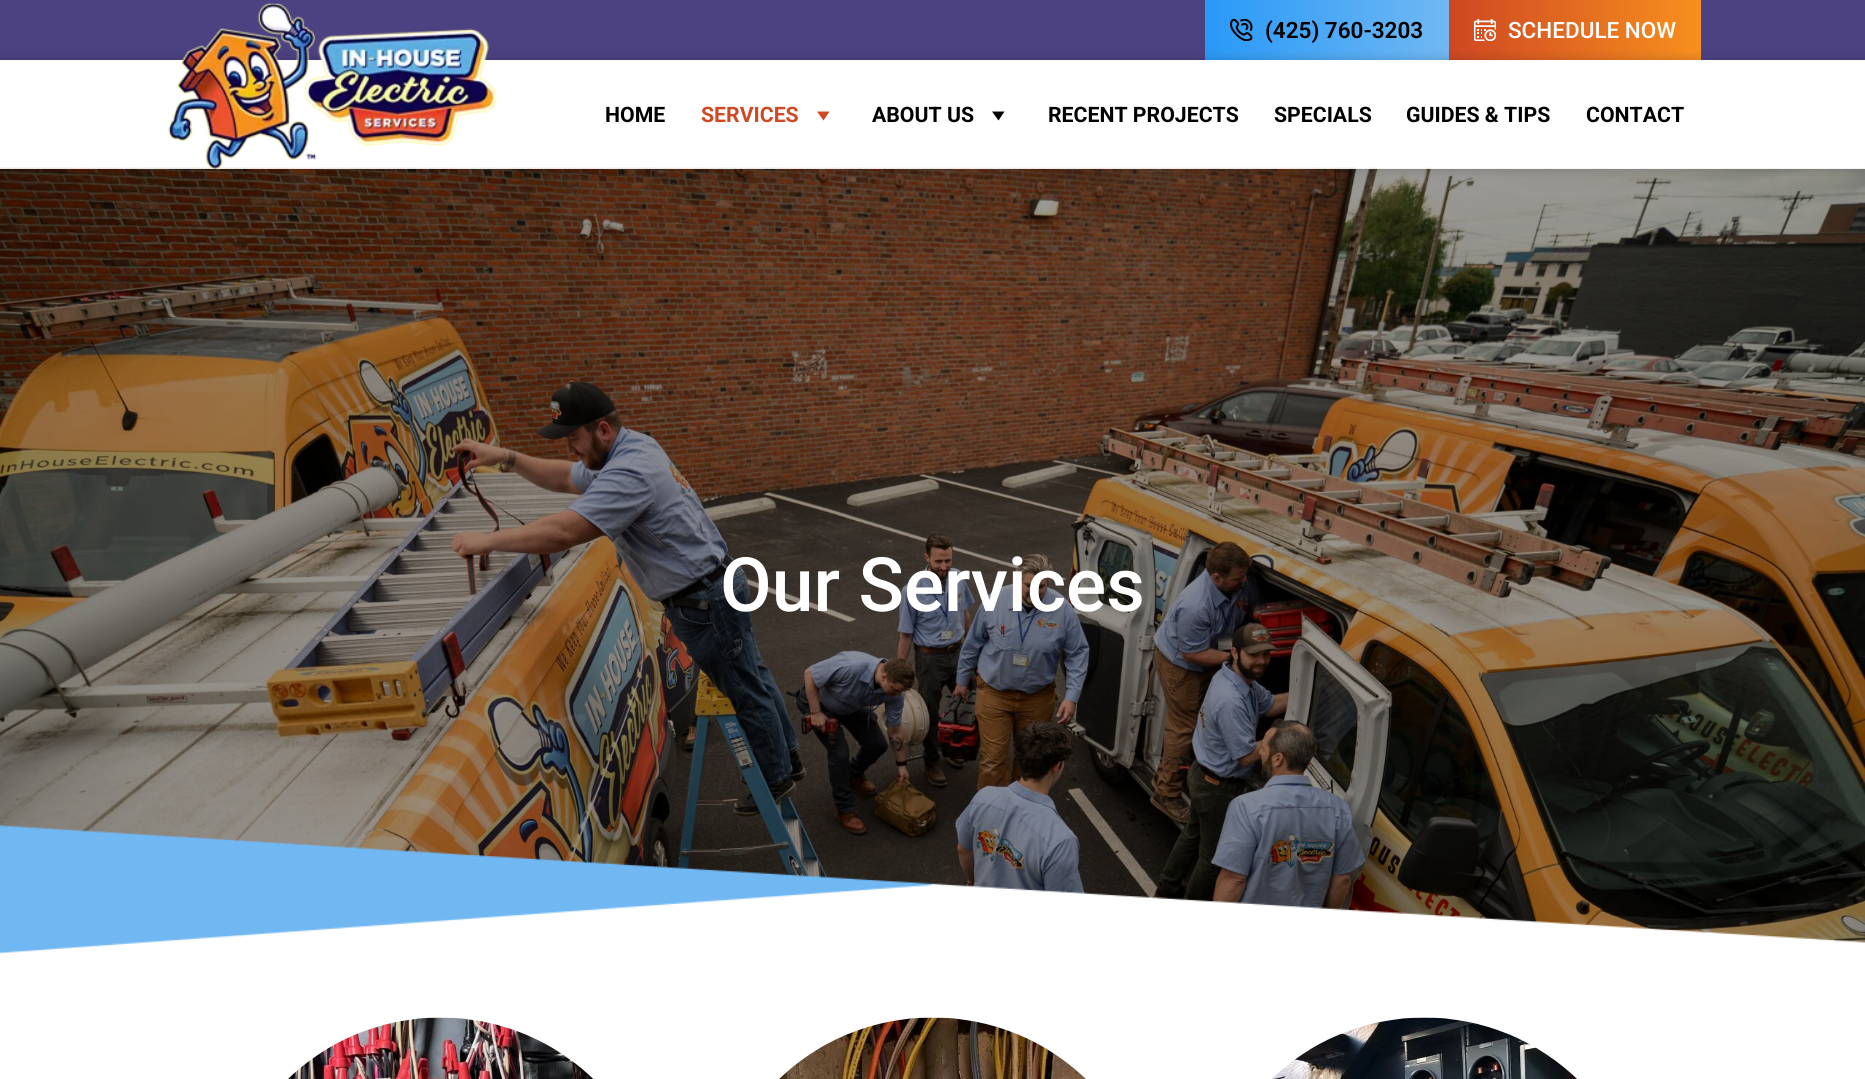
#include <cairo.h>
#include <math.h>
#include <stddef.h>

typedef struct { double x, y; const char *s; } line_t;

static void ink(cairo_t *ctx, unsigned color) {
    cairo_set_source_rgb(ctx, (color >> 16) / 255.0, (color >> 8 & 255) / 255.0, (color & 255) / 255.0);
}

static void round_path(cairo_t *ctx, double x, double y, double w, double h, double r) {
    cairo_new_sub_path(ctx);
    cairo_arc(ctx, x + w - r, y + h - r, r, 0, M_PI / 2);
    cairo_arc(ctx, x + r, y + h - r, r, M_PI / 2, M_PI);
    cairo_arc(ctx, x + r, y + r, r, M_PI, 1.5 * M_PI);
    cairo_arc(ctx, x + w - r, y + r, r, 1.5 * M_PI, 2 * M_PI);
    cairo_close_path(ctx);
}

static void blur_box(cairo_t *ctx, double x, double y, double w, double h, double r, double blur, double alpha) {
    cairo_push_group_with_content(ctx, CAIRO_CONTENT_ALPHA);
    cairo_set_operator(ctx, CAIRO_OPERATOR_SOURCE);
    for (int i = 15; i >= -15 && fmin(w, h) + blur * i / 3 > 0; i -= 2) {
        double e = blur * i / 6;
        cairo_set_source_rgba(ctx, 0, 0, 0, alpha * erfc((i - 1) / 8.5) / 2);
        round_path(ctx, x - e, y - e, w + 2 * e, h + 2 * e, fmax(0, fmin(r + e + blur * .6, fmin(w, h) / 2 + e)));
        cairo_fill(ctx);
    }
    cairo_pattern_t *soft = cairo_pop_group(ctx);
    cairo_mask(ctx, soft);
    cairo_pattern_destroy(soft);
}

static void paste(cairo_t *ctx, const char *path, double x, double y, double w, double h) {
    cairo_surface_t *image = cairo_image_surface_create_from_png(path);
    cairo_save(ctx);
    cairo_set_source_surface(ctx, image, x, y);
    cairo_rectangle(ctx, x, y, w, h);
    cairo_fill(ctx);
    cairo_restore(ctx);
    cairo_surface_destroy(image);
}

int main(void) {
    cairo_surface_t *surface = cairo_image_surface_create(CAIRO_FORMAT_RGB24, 1865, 1079);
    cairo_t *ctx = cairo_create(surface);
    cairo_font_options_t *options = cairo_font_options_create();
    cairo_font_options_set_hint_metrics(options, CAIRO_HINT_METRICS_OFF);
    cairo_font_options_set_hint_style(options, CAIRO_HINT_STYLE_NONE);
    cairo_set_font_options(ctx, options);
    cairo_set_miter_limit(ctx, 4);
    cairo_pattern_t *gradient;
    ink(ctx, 0xFFFFFF);
    cairo_paint(ctx);
    ink(ctx, 0x4C4181);
    cairo_rectangle(ctx, 0, 0, 1865, 60);
    cairo_fill(ctx);
    gradient = cairo_pattern_create_linear(1205, 30, 1449, 30);
    cairo_pattern_add_color_stop_rgba(gradient, 0, 0.157, 0.6, 0.969, 1);
    cairo_pattern_add_color_stop_rgba(gradient, 1, 0.443, 0.722, 0.953, 1);
    cairo_set_source(ctx, gradient);
    cairo_pattern_destroy(gradient);
    cairo_rectangle(ctx, 1205, 0, 244, 60);
    cairo_fill(ctx);
    paste(ctx, "media/1.png", 1230, 19, 23, 22);
    cairo_select_font_face(ctx, "Roboto SemiBold", CAIRO_FONT_SLANT_NORMAL, CAIRO_FONT_WEIGHT_NORMAL);
    cairo_set_font_size(ctx, 22.5);
    ink(ctx, 0x000000);
    cairo_move_to(ctx, 1265, 38);
    cairo_show_text(ctx, "(425) 760-3203");
    gradient = cairo_pattern_create_linear(1449, 30, 1701, 30);
    cairo_pattern_add_color_stop_rgba(gradient, 0, 0.812, 0.278, 0.133, 1);
    cairo_pattern_add_color_stop_rgba(gradient, 1, 0.969, 0.565, 0.118, 1);
    cairo_set_source(ctx, gradient);
    cairo_pattern_destroy(gradient);
    cairo_rectangle(ctx, 1449, 0, 252, 60);
    cairo_fill(ctx);
    paste(ctx, "media/2.png", 1474, 19, 22, 22);
    cairo_select_font_face(ctx, "Roboto Medium", CAIRO_FONT_SLANT_NORMAL, CAIRO_FONT_WEIGHT_NORMAL);
    ink(ctx, 0xFFFFFF);
    cairo_move_to(ctx, 1508, 38);
    cairo_show_text(ctx, "SCHEDULE NOW");
    paste(ctx, "media/4.png", 0, 167, 1865, 776);
    cairo_save(ctx);
    cairo_set_fill_rule(ctx, CAIRO_FILL_RULE_EVEN_ODD);
    cairo_new_path(ctx);
    cairo_move_to(ctx, 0, 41);
    cairo_line_to(ctx, 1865, 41);
    cairo_line_to(ctx, 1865, 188);
    cairo_line_to(ctx, 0, 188);
    cairo_close_path(ctx);
    cairo_move_to(ctx, 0, 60);
    cairo_line_to(ctx, 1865, 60);
    cairo_line_to(ctx, 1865, 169);
    cairo_line_to(ctx, 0, 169);
    cairo_close_path(ctx);
    cairo_clip(ctx);
    ink(ctx, 0x000000);
    blur_box(ctx, 0, 60, 1865, 109, 0, 6, 0.2);
    cairo_restore(ctx);
    cairo_set_source_rgba(ctx, 1, 1, 1, 0.9);
    cairo_rectangle(ctx, 0, 167, 1865, 2);
    cairo_fill(ctx);
    paste(ctx, "media/3.png", 168, 3, 329, 166);
    cairo_select_font_face(ctx, "Roboto", CAIRO_FONT_SLANT_NORMAL, CAIRO_FONT_WEIGHT_BOLD);
    cairo_set_font_size(ctx, 21.25);
    ink(ctx, 0x000000);
    cairo_move_to(ctx, 605, 122);
    cairo_show_text(ctx, "HOME");
    ink(ctx, 0xD04922);
    cairo_move_to(ctx, 701, 122);
    cairo_show_text(ctx, "SERVICES");
    cairo_new_path(ctx);
    cairo_move_to(ctx, 829.5, 111.5);
    cairo_line_to(ctx, 823.5, 120.5);
    cairo_line_to(ctx, 817, 111.5);
    cairo_close_path(ctx);
    cairo_fill(ctx);
    ink(ctx, 0x000000);
    cairo_move_to(ctx, 872, 122);
    cairo_show_text(ctx, "ABOUT US");
    cairo_new_path(ctx);
    cairo_move_to(ctx, 1004.5, 111.5);
    cairo_line_to(ctx, 998.5, 120.5);
    cairo_line_to(ctx, 992, 111.5);
    cairo_close_path(ctx);
    cairo_fill(ctx);
    {
        static const line_t items[] = {
            {1048, 122, "RECENT PROJECTS"},
            {1274, 122, "SPECIALS"},
            {1406, 122, "GUIDES & TIPS"},
            {1586, 122, "CONTACT"},
        };
        for (size_t i = 0; i < sizeof items / sizeof *items; i++) {
            cairo_move_to(ctx, items[i].x, items[i].y);
            cairo_show_text(ctx, items[i].s);
        }
    }
    cairo_select_font_face(ctx, "Roboto Medium", CAIRO_FONT_SLANT_NORMAL, CAIRO_FONT_WEIGHT_NORMAL);
    cairo_set_font_size(ctx, 75);
    ink(ctx, 0xFFFFFF);
    cairo_move_to(ctx, 720, 611);
    cairo_show_text(ctx, "Our Services");
    paste(ctx, "media/5.png", 0, 825, 1865, 130);
    paste(ctx, "media/6.png", 288, 1017, 306, 62);
    paste(ctx, "media/7.png", 779, 1017, 307, 62);
    paste(ctx, "media/8.png", 1272, 1017, 305, 62);
    cairo_surface_write_to_png(surface, "image.png");
    cairo_font_options_destroy(options);
    cairo_destroy(ctx);
    cairo_surface_destroy(surface);
    return 0;
}
